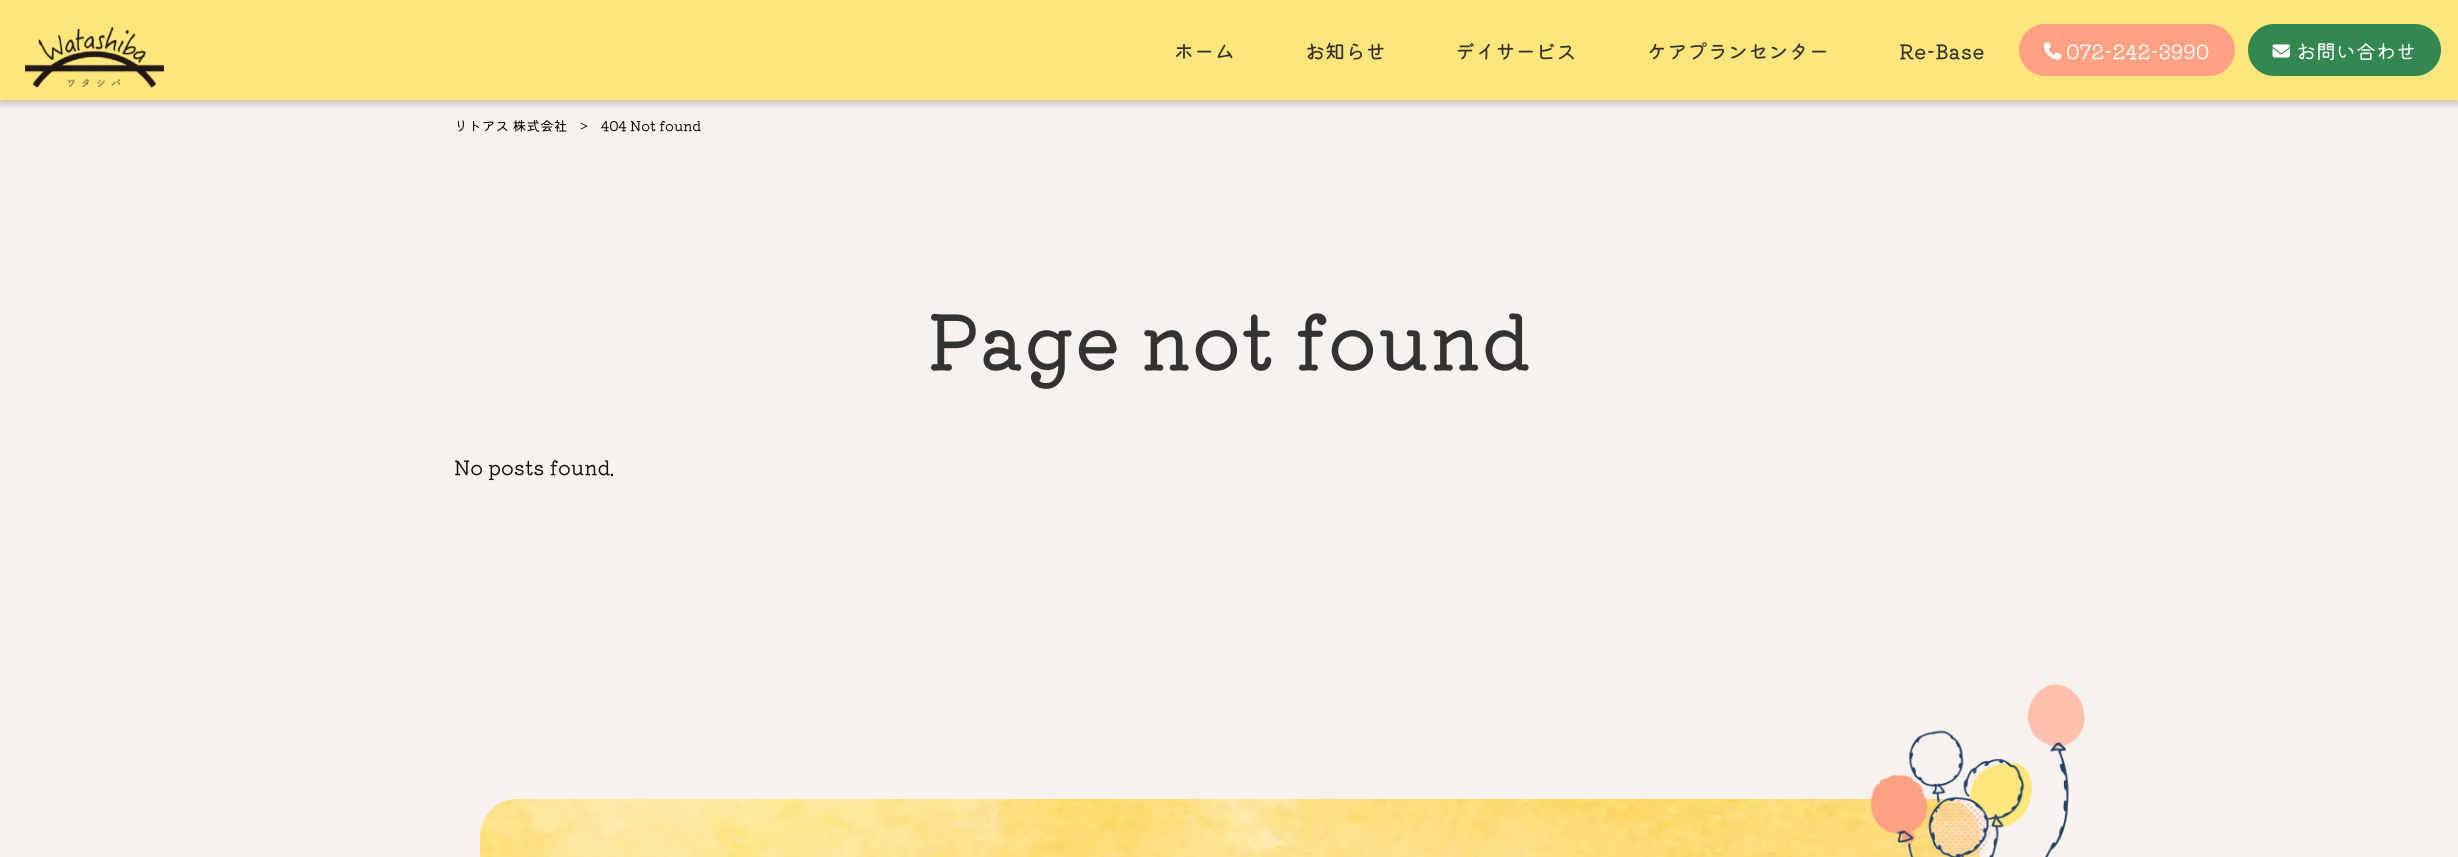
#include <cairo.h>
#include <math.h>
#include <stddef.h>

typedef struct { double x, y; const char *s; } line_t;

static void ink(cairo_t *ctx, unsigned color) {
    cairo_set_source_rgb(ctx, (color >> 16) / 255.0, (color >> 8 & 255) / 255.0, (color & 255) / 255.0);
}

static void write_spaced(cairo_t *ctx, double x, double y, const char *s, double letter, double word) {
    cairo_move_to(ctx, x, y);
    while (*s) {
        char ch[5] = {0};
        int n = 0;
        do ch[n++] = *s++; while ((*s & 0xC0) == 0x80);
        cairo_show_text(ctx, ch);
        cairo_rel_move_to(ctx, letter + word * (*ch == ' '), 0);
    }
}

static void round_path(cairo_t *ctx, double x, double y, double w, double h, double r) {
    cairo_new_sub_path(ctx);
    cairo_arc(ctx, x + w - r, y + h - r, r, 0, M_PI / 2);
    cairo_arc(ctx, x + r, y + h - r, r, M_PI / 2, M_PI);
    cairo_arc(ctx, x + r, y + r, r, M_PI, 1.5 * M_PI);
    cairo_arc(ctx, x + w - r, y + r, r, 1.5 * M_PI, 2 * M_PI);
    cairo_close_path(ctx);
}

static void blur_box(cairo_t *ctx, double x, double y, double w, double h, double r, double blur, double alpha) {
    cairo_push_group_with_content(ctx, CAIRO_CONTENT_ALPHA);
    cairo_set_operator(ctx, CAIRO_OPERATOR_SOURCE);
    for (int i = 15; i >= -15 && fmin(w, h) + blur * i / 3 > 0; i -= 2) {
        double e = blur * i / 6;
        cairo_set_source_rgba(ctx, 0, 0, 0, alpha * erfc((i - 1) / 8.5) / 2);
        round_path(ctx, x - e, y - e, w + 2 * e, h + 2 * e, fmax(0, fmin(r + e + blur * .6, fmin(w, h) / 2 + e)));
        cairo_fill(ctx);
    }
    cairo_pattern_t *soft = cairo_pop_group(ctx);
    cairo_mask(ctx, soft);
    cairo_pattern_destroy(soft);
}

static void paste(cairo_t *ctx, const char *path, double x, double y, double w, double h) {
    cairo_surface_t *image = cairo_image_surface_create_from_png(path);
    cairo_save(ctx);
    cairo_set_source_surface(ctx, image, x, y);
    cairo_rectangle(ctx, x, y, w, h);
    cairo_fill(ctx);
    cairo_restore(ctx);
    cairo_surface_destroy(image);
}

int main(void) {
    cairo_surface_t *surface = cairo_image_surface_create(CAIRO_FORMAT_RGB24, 2458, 857);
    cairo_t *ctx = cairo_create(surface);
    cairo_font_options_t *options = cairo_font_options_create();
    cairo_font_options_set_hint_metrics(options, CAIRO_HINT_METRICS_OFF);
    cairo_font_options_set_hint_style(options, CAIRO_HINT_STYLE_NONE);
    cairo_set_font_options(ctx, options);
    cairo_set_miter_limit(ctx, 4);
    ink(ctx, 0xF8F2EE);
    cairo_paint(ctx);
    ink(ctx, 0x000000);
    blur_box(ctx, 0, 4, 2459, 100, 0, 4, 0.2);
    ink(ctx, 0xFDE67C);
    cairo_rectangle(ctx, 0, 0, 2458, 100);
    cairo_fill(ctx);
    paste(ctx, "media/1.png", 25, 26, 139, 62);
    cairo_select_font_face(ctx, "Kiwi Maru Medium", CAIRO_FONT_SLANT_NORMAL, CAIRO_FONT_WEIGHT_NORMAL);
    cairo_set_font_size(ctx, 20);
    ink(ctx, 0x333333);
    {
        static const line_t items[] = {
            {1174, 59, "ホーム"},
            {1305, 59, "お知らせ"},
            {1455, 59, "デイサービス"},
            {1647, 59, "ケアプランセンター"},
            {1899, 59, "Re-Base"},
        };
        for (size_t i = 0; i < sizeof items / sizeof *items; i++) {
            write_spaced(ctx, items[i].x, items[i].y, items[i].s, 0.25, 0);
        }
    }
    ink(ctx, 0xFEA182);
    round_path(ctx, 2019, 24, 216, 52, 26);
    cairo_fill(ctx);
    paste(ctx, "media/2.png", 2043, 42, 19, 18);
    cairo_select_font_face(ctx, "Kiwi Maru", CAIRO_FONT_SLANT_NORMAL, CAIRO_FONT_WEIGHT_NORMAL);
    ink(ctx, 0xFFFFFF);
    cairo_move_to(ctx, 2066, 59);
    cairo_show_text(ctx, "072-242-3990");
    ink(ctx, 0x338751);
    round_path(ctx, 2248, 24, 193, 52, 26);
    cairo_fill(ctx);
    paste(ctx, "media/3.png", 2272, 44, 18, 14);
    ink(ctx, 0xFFFFFF);
    cairo_move_to(ctx, 2296, 59);
    cairo_show_text(ctx, "お問い合わせ");
    cairo_set_font_size(ctx, 13.75);
    ink(ctx, 0x000000);
    {
        static const line_t items[] = {
            {454, 131, "リトアス 株式会社"},
            {580, 131, ">"},
            {601, 131, "404 Not found"},
        };
        for (size_t i = 0; i < sizeof items / sizeof *items; i++) {
            cairo_move_to(ctx, items[i].x, items[i].y);
            cairo_show_text(ctx, items[i].s);
        }
    }
    cairo_select_font_face(ctx, "Kiwi Maru Medium", CAIRO_FONT_SLANT_NORMAL, CAIRO_FONT_WEIGHT_NORMAL);
    cairo_set_font_size(ctx, 75);
    ink(ctx, 0x333333);
    write_spaced(ctx, 927, 369, "Page not found", 0.75, 0);
    cairo_select_font_face(ctx, "Kiwi Maru", CAIRO_FONT_SLANT_NORMAL, CAIRO_FONT_WEIGHT_NORMAL);
    cairo_set_font_size(ctx, 20);
    ink(ctx, 0x111111);
    cairo_move_to(ctx, 454, 475);
    cairo_show_text(ctx, "No posts found.");
    paste(ctx, "media/4.png", 480, 798, 1500, 59);
    paste(ctx, "media/5.png", 1870, 684, 215, 173);
    cairo_surface_write_to_png(surface, "image.png");
    cairo_font_options_destroy(options);
    cairo_destroy(ctx);
    cairo_surface_destroy(surface);
    return 0;
}
